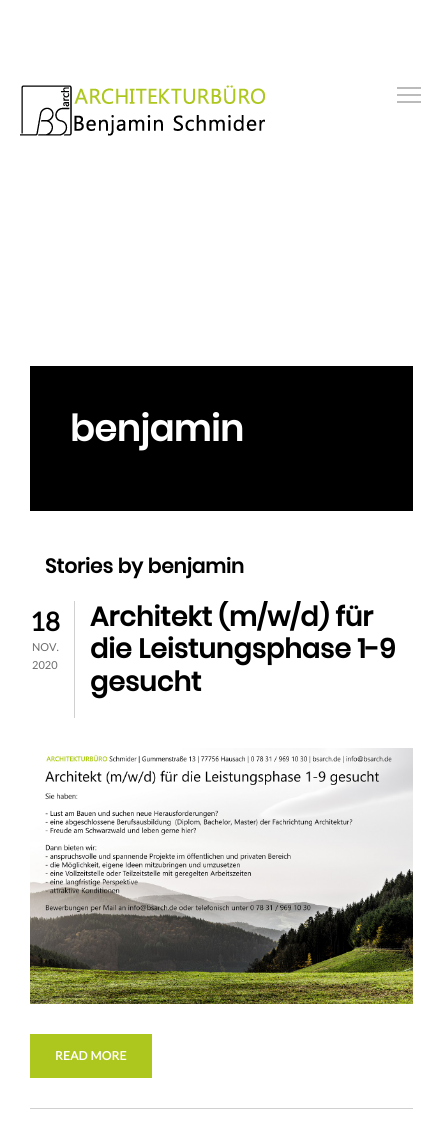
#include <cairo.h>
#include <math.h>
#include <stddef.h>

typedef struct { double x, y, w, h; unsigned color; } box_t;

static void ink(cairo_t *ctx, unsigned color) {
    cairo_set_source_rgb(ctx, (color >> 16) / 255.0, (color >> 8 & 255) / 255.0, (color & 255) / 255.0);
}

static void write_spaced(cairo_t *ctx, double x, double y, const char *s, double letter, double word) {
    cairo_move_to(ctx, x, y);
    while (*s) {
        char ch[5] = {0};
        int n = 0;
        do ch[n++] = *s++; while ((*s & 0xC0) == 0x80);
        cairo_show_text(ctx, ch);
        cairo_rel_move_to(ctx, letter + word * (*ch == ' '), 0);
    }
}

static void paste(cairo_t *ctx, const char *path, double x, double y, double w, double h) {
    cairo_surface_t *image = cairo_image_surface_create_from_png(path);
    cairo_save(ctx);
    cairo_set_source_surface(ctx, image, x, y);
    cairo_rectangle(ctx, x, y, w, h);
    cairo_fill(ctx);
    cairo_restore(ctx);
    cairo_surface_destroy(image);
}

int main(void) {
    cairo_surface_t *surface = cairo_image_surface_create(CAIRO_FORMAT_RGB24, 443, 1136);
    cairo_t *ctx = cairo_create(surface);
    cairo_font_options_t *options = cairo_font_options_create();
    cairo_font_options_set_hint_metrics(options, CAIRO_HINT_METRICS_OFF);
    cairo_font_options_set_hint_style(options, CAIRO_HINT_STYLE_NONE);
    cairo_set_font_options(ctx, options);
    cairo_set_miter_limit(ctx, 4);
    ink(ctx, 0xFFFFFF);
    cairo_paint(ctx);
    paste(ctx, "media/1.png", 20, 85, 245, 51);
    {
        static const box_t items[] = {
            {397, 94, 24, 2, 0xBBBBBB},
            {397, 87, 24, 2, 0xBBBBBB},
            {397, 101, 24, 2, 0xBBBBBB},
            {30, 366, 383, 145, 0x000000},
        };
        for (size_t i = 0; i < sizeof items / sizeof *items; i++) {
            ink(ctx, items[i].color);
            cairo_rectangle(ctx, items[i].x, items[i].y, items[i].w, items[i].h);
            cairo_fill(ctx);
        }
    }
    cairo_select_font_face(ctx, "Poppins", CAIRO_FONT_SLANT_NORMAL, CAIRO_FONT_WEIGHT_BOLD);
    cairo_set_font_size(ctx, 36);
    ink(ctx, 0xFFFFFF);
    cairo_move_to(ctx, 70, 441);
    cairo_show_text(ctx, "benjamin");
    cairo_set_font_size(ctx, 20);
    ink(ctx, 0x000000);
    cairo_move_to(ctx, 45, 573);
    cairo_show_text(ctx, "Stories by benjamin");
    cairo_select_font_face(ctx, "Lato", CAIRO_FONT_SLANT_NORMAL, CAIRO_FONT_WEIGHT_BOLD);
    cairo_set_font_size(ctx, 26);
    cairo_move_to(ctx, 30, 631);
    cairo_show_text(ctx, "18");
    cairo_select_font_face(ctx, "Lato", CAIRO_FONT_SLANT_NORMAL, CAIRO_FONT_WEIGHT_NORMAL);
    cairo_set_font_size(ctx, 11);
    ink(ctx, 0x6D6D6D);
    cairo_move_to(ctx, 32, 651);
    cairo_show_text(ctx, "NOV.");
    cairo_move_to(ctx, 32, 669);
    cairo_show_text(ctx, "2020");
    ink(ctx, 0xD0D0D0);
    cairo_rectangle(ctx, 74, 601, 1, 117);
    cairo_fill(ctx);
    cairo_save(ctx);
    cairo_rectangle(ctx, 75, 601, 338, 117);
    cairo_clip(ctx);
    cairo_select_font_face(ctx, "Poppins", CAIRO_FONT_SLANT_NORMAL, CAIRO_FONT_WEIGHT_BOLD);
    cairo_set_font_size(ctx, 27);
    ink(ctx, 0x000000);
    cairo_move_to(ctx, 90, 626);
    cairo_show_text(ctx, "Architekt (m/w/d) für");
    cairo_restore(ctx);
    cairo_select_font_face(ctx, "Poppins", CAIRO_FONT_SLANT_NORMAL, CAIRO_FONT_WEIGHT_BOLD);
    cairo_set_font_size(ctx, 27);
    ink(ctx, 0x000000);
    cairo_move_to(ctx, 90, 658);
    cairo_show_text(ctx, "die Leistungsphase 1-9");
    cairo_move_to(ctx, 90, 691);
    cairo_show_text(ctx, "gesucht");
    paste(ctx, "media/2.png", 30, 748, 383, 256);
    ink(ctx, 0xD0D0D0);
    cairo_rectangle(ctx, 30, 1108, 383, 1);
    cairo_fill(ctx);
    ink(ctx, 0xAEC71E);
    cairo_rectangle(ctx, 30, 1034, 122, 44);
    cairo_fill(ctx);
    cairo_select_font_face(ctx, "Lato", CAIRO_FONT_SLANT_NORMAL, CAIRO_FONT_WEIGHT_BOLD);
    cairo_set_font_size(ctx, 12);
    ink(ctx, 0xFFFFFF);
    write_spaced(ctx, 55, 1060, "READ MORE", 0.25, 0);
    cairo_surface_write_to_png(surface, "image.png");
    cairo_font_options_destroy(options);
    cairo_destroy(ctx);
    cairo_surface_destroy(surface);
    return 0;
}
